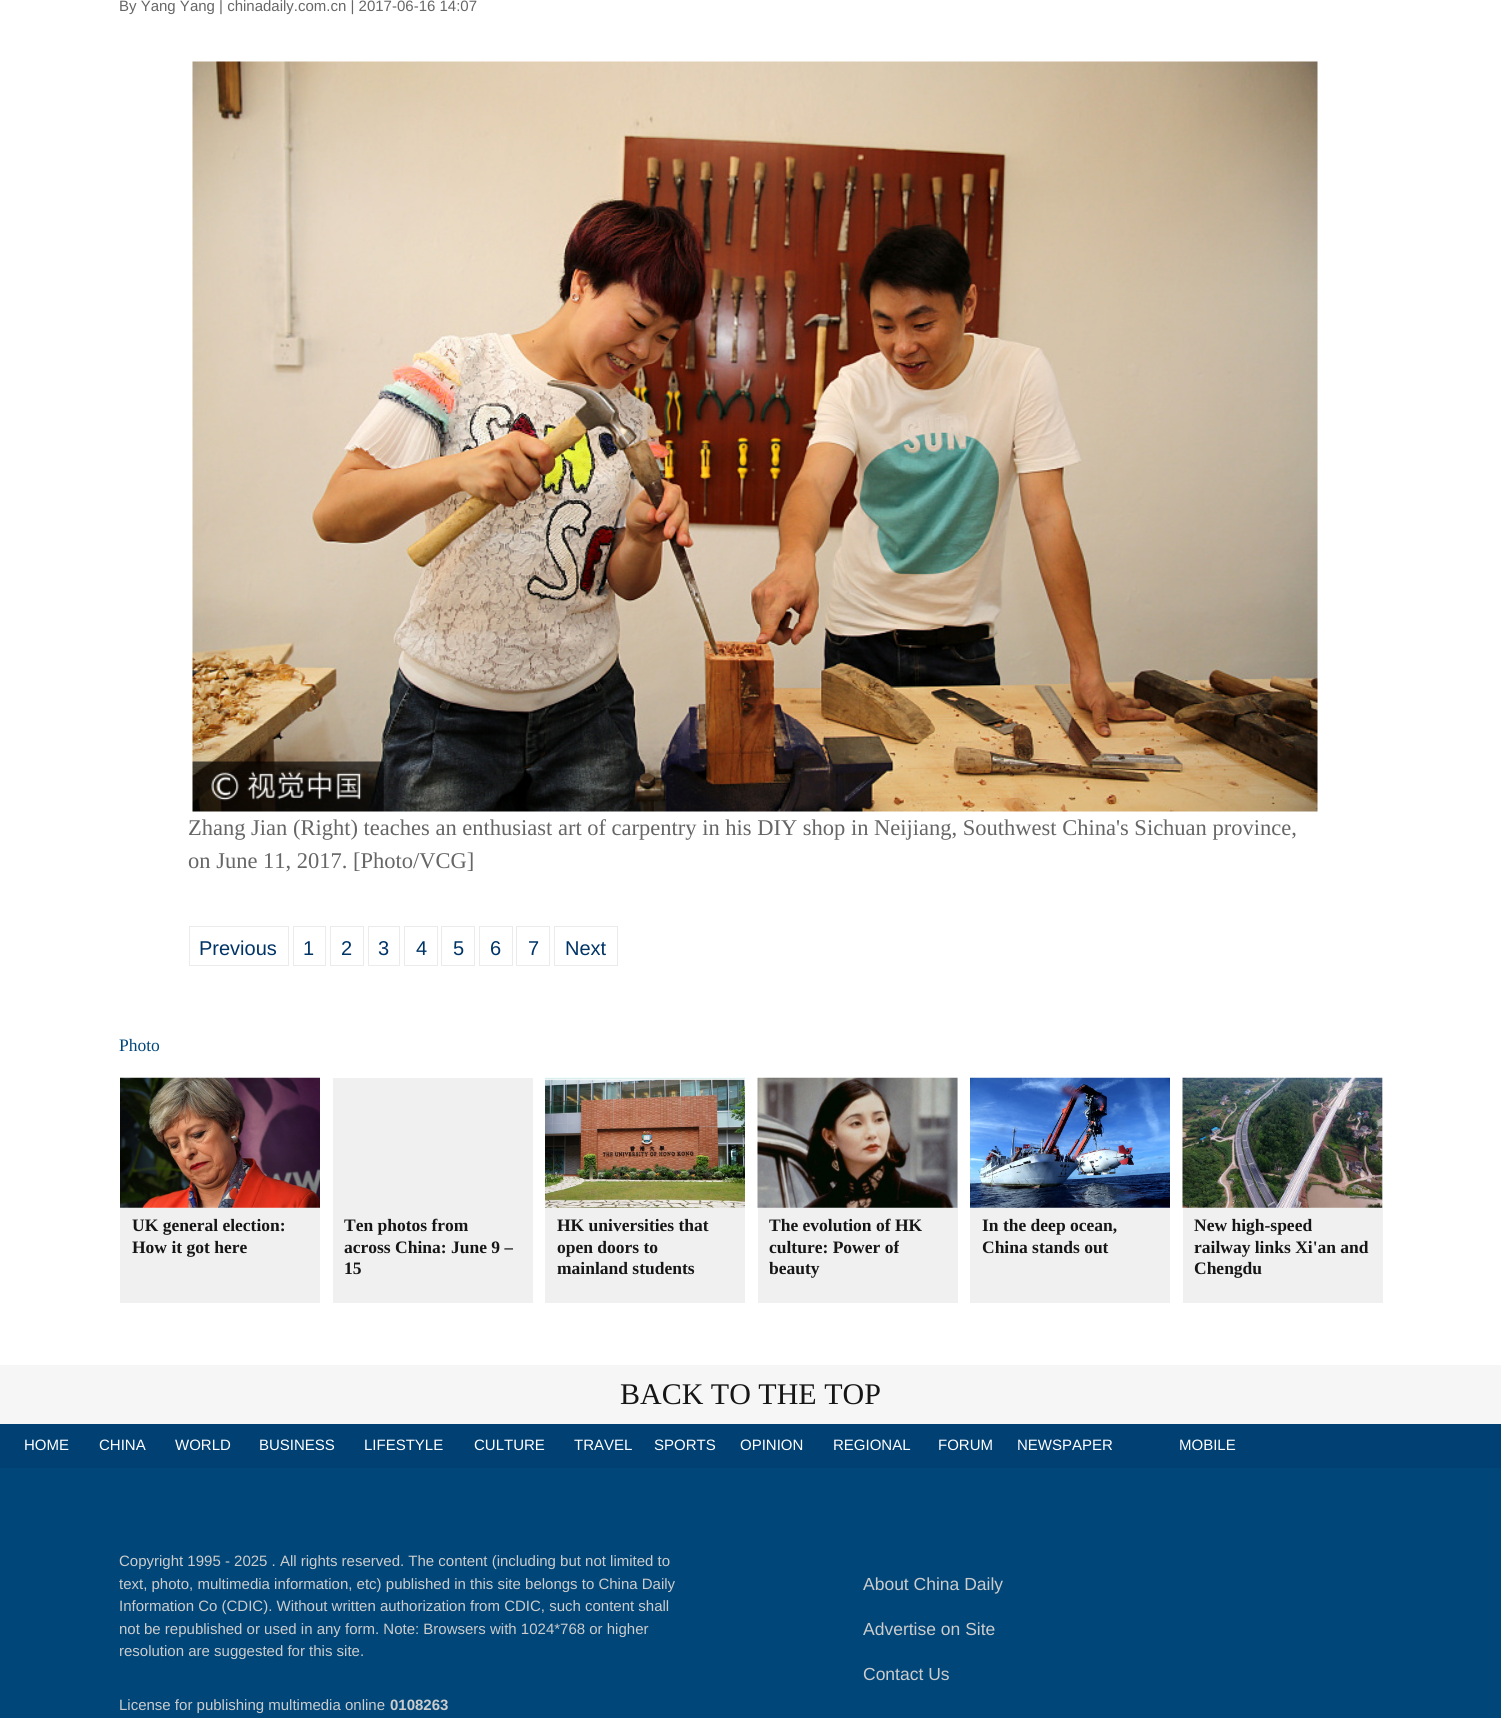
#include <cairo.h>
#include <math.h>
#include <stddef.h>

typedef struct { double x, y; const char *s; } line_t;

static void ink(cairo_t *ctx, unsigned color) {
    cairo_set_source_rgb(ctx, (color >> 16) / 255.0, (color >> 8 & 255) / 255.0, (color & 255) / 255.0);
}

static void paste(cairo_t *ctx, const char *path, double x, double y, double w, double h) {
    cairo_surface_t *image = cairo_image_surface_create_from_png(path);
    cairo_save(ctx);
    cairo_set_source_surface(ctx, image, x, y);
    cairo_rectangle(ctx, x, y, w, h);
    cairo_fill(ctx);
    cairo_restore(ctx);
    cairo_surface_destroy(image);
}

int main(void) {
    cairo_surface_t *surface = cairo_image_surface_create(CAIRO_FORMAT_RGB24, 1501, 1718);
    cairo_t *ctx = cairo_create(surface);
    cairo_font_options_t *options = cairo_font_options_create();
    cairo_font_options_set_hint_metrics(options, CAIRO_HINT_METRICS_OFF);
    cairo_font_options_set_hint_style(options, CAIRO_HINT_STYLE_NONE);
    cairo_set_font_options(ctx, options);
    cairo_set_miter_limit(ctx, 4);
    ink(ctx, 0xFFFFFF);
    cairo_paint(ctx);
    cairo_select_font_face(ctx, "Liberation Sans", CAIRO_FONT_SLANT_NORMAL, CAIRO_FONT_WEIGHT_NORMAL);
    cairo_set_font_size(ctx, 15);
    ink(ctx, 0x666666);
    cairo_move_to(ctx, 119, 11);
    cairo_show_text(ctx, "By Yang Yang | chinadaily.com.cn | 2017-06-16 14:07");
    paste(ctx, "media/1.png", 192, 61, 1126, 751);
    cairo_select_font_face(ctx, "Liberation Serif", CAIRO_FONT_SLANT_NORMAL, CAIRO_FONT_WEIGHT_NORMAL);
    cairo_set_font_size(ctx, 22.5);
    cairo_move_to(ctx, 188, 835);
    cairo_show_text(ctx, "Zhang Jian (Right) teaches an enthusiast art of carpentry in his DIY shop in Neijiang, Southwest China's Sichuan province,");
    cairo_move_to(ctx, 188, 868);
    cairo_show_text(ctx, "on June 11, 2017. [Photo/VCG]");
    cairo_rectangle(ctx, 189.5, 926.5, 99, 39);
    ink(ctx, 0xEBEBEB);
    cairo_set_line_width(ctx, 1);
    cairo_stroke(ctx);
    cairo_select_font_face(ctx, "Liberation Sans", CAIRO_FONT_SLANT_NORMAL, CAIRO_FONT_WEIGHT_NORMAL);
    cairo_set_font_size(ctx, 20);
    ink(ctx, 0x003366);
    cairo_move_to(ctx, 199, 955);
    cairo_show_text(ctx, "Previous");
    cairo_rectangle(ctx, 293.5, 926.5, 32, 39);
    ink(ctx, 0xEBEBEB);
    cairo_stroke(ctx);
    ink(ctx, 0x003366);
    cairo_move_to(ctx, 303, 955);
    cairo_show_text(ctx, "1");
    cairo_rectangle(ctx, 330.5, 926.5, 33, 39);
    ink(ctx, 0xEBEBEB);
    cairo_stroke(ctx);
    ink(ctx, 0x003366);
    cairo_move_to(ctx, 341, 955);
    cairo_show_text(ctx, "2");
    cairo_rectangle(ctx, 368.5, 926.5, 31, 39);
    ink(ctx, 0xEBEBEB);
    cairo_stroke(ctx);
    ink(ctx, 0x003366);
    cairo_move_to(ctx, 378, 955);
    cairo_show_text(ctx, "3");
    cairo_rectangle(ctx, 404.5, 926.5, 33, 39);
    ink(ctx, 0xEBEBEB);
    cairo_stroke(ctx);
    ink(ctx, 0x003366);
    cairo_move_to(ctx, 416, 955);
    cairo_show_text(ctx, "4");
    cairo_rectangle(ctx, 441.5, 926.5, 33, 39);
    ink(ctx, 0xEBEBEB);
    cairo_stroke(ctx);
    ink(ctx, 0x003366);
    cairo_move_to(ctx, 453, 955);
    cairo_show_text(ctx, "5");
    cairo_rectangle(ctx, 479.5, 926.5, 33, 39);
    ink(ctx, 0xEBEBEB);
    cairo_stroke(ctx);
    ink(ctx, 0x003366);
    cairo_move_to(ctx, 490, 955);
    cairo_show_text(ctx, "6");
    cairo_rectangle(ctx, 516.5, 926.5, 33, 39);
    ink(ctx, 0xEBEBEB);
    cairo_stroke(ctx);
    ink(ctx, 0x003366);
    cairo_move_to(ctx, 528, 955);
    cairo_show_text(ctx, "7");
    cairo_rectangle(ctx, 554.5, 926.5, 63, 39);
    ink(ctx, 0xEBEBEB);
    cairo_stroke(ctx);
    ink(ctx, 0x003366);
    cairo_move_to(ctx, 565, 955);
    cairo_show_text(ctx, "Next");
    cairo_select_font_face(ctx, "Liberation Serif", CAIRO_FONT_SLANT_NORMAL, CAIRO_FONT_WEIGHT_NORMAL);
    cairo_set_font_size(ctx, 17.5);
    ink(ctx, 0x004679);
    cairo_move_to(ctx, 119, 1051);
    cairo_show_text(ctx, "Photo");
    ink(ctx, 0xF0F0F0);
    cairo_rectangle(ctx, 120, 1207, 200, 96);
    cairo_fill(ctx);
    paste(ctx, "media/2.png", 120, 1077, 200, 131);
    cairo_select_font_face(ctx, "Liberation Serif", CAIRO_FONT_SLANT_NORMAL, CAIRO_FONT_WEIGHT_BOLD);
    ink(ctx, 0x161616);
    cairo_move_to(ctx, 132, 1231);
    cairo_show_text(ctx, "UK general election:");
    cairo_move_to(ctx, 132, 1253);
    cairo_show_text(ctx, "How it got here");
    ink(ctx, 0xF0F0F0);
    cairo_rectangle(ctx, 333, 1078, 200, 225);
    cairo_fill(ctx);
    ink(ctx, 0x161616);
    {
        static const line_t items[] = {
            {344, 1231, "Ten photos from"},
            {344, 1253, "across China: June 9 –"},
            {344, 1274, "15"},
        };
        for (size_t i = 0; i < sizeof items / sizeof *items; i++) {
            cairo_move_to(ctx, items[i].x, items[i].y);
            cairo_show_text(ctx, items[i].s);
        }
    }
    ink(ctx, 0xF0F0F0);
    cairo_rectangle(ctx, 545, 1207, 200, 96);
    cairo_fill(ctx);
    paste(ctx, "media/3.png", 545, 1077, 200, 131);
    ink(ctx, 0x161616);
    {
        static const line_t items[] = {
            {557, 1231, "HK universities that"},
            {557, 1253, "open doors to"},
            {557, 1274, "mainland students"},
        };
        for (size_t i = 0; i < sizeof items / sizeof *items; i++) {
            cairo_move_to(ctx, items[i].x, items[i].y);
            cairo_show_text(ctx, items[i].s);
        }
    }
    ink(ctx, 0xF0F0F0);
    cairo_rectangle(ctx, 758, 1078, 200, 225);
    cairo_fill(ctx);
    paste(ctx, "media/4.png", 757, 1077, 201, 131);
    ink(ctx, 0x161616);
    {
        static const line_t items[] = {
            {769, 1231, "The evolution of HK"},
            {769, 1253, "culture: Power of"},
            {769, 1274, "beauty"},
        };
        for (size_t i = 0; i < sizeof items / sizeof *items; i++) {
            cairo_move_to(ctx, items[i].x, items[i].y);
            cairo_show_text(ctx, items[i].s);
        }
    }
    ink(ctx, 0xF0F0F0);
    cairo_rectangle(ctx, 970, 1207, 200, 96);
    cairo_fill(ctx);
    paste(ctx, "media/5.png", 970, 1077, 200, 131);
    ink(ctx, 0x161616);
    cairo_move_to(ctx, 982, 1231);
    cairo_show_text(ctx, "In the deep ocean,");
    cairo_move_to(ctx, 982, 1253);
    cairo_show_text(ctx, "China stands out");
    ink(ctx, 0xF0F0F0);
    cairo_rectangle(ctx, 1183, 1078, 200, 225);
    cairo_fill(ctx);
    paste(ctx, "media/6.png", 1182, 1077, 201, 131);
    ink(ctx, 0x161616);
    {
        static const line_t items[] = {
            {1194, 1231, "New high-speed"},
            {1194, 1253, "railway links Xi'an and"},
            {1194, 1274, "Chengdu"},
        };
        for (size_t i = 0; i < sizeof items / sizeof *items; i++) {
            cairo_move_to(ctx, items[i].x, items[i].y);
            cairo_show_text(ctx, items[i].s);
        }
    }
    ink(ctx, 0xF6F6F6);
    cairo_rectangle(ctx, 0, 1365, 1501, 59);
    cairo_fill(ctx);
    cairo_select_font_face(ctx, "Liberation Serif", CAIRO_FONT_SLANT_NORMAL, CAIRO_FONT_WEIGHT_NORMAL);
    cairo_set_font_size(ctx, 30);
    ink(ctx, 0x161616);
    cairo_move_to(ctx, 620, 1404);
    cairo_show_text(ctx, "BACK TO THE TOP");
    ink(ctx, 0x014073);
    cairo_rectangle(ctx, 0, 1424, 1501, 44);
    cairo_fill(ctx);
    cairo_select_font_face(ctx, "Liberation Sans", CAIRO_FONT_SLANT_NORMAL, CAIRO_FONT_WEIGHT_NORMAL);
    cairo_set_font_size(ctx, 15);
    ink(ctx, 0xFFFFFF);
    {
        static const line_t items[] = {
            {24, 1450, "HOME"},
            {99, 1450, "CHINA"},
            {175, 1450, "WORLD"},
            {259, 1450, "BUSINESS"},
            {364, 1450, "LIFESTYLE"},
            {474, 1450, "CULTURE"},
            {574, 1450, "TRAVEL"},
            {654, 1450, "SPORTS"},
            {740, 1450, "OPINION"},
            {833, 1450, "REGIONAL"},
            {938, 1450, "FORUM"},
            {1017, 1450, "NEWSPAPER"},
            {1179, 1450, "MOBILE"},
        };
        for (size_t i = 0; i < sizeof items / sizeof *items; i++) {
            cairo_move_to(ctx, items[i].x, items[i].y);
            cairo_show_text(ctx, items[i].s);
        }
    }
    ink(ctx, 0x004679);
    cairo_rectangle(ctx, 0, 1468, 1501, 250);
    cairo_fill(ctx);
    ink(ctx, 0xCCCCCC);
    {
        static const line_t items[] = {
            {119, 1566, "Copyright 1995 - 2025 . All rights reserved. The content (including but not limited to"},
            {119, 1589, "text, photo, multimedia information, etc) published in this site belongs to China Daily"},
            {119, 1611, "Information Co (CDIC). Without written authorization from CDIC, such content shall"},
            {119, 1634, "not be republished or used in any form. Note: Browsers with 1024*768 or higher"},
            {119, 1656, "resolution are suggested for this site."},
            {119, 1710, "License for publishing multimedia online"},
        };
        for (size_t i = 0; i < sizeof items / sizeof *items; i++) {
            cairo_move_to(ctx, items[i].x, items[i].y);
            cairo_show_text(ctx, items[i].s);
        }
    }
    cairo_select_font_face(ctx, "Liberation Sans", CAIRO_FONT_SLANT_NORMAL, CAIRO_FONT_WEIGHT_BOLD);
    cairo_move_to(ctx, 390, 1710);
    cairo_show_text(ctx, "0108263");
    cairo_select_font_face(ctx, "Liberation Sans", CAIRO_FONT_SLANT_NORMAL, CAIRO_FONT_WEIGHT_NORMAL);
    cairo_set_font_size(ctx, 17.5);
    {
        static const line_t items[] = {
            {863, 1590, "About China Daily"},
            {863, 1635, "Advertise on Site"},
            {863, 1680, "Contact Us"},
        };
        for (size_t i = 0; i < sizeof items / sizeof *items; i++) {
            cairo_move_to(ctx, items[i].x, items[i].y);
            cairo_show_text(ctx, items[i].s);
        }
    }
    cairo_surface_write_to_png(surface, "image.png");
    cairo_font_options_destroy(options);
    cairo_destroy(ctx);
    cairo_surface_destroy(surface);
    return 0;
}
